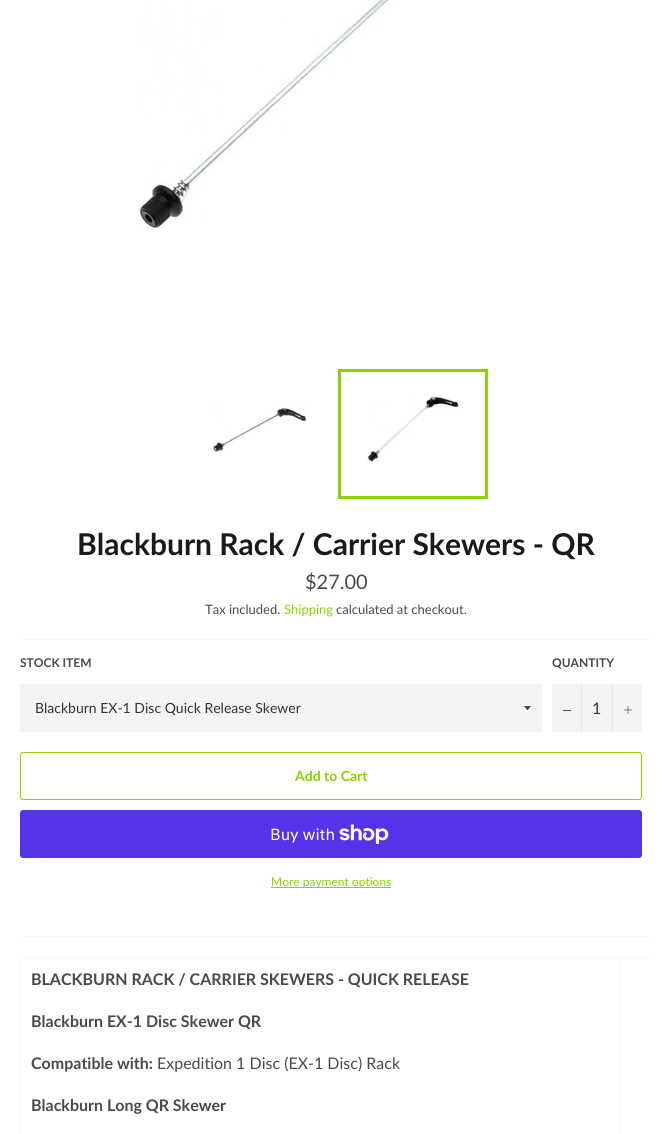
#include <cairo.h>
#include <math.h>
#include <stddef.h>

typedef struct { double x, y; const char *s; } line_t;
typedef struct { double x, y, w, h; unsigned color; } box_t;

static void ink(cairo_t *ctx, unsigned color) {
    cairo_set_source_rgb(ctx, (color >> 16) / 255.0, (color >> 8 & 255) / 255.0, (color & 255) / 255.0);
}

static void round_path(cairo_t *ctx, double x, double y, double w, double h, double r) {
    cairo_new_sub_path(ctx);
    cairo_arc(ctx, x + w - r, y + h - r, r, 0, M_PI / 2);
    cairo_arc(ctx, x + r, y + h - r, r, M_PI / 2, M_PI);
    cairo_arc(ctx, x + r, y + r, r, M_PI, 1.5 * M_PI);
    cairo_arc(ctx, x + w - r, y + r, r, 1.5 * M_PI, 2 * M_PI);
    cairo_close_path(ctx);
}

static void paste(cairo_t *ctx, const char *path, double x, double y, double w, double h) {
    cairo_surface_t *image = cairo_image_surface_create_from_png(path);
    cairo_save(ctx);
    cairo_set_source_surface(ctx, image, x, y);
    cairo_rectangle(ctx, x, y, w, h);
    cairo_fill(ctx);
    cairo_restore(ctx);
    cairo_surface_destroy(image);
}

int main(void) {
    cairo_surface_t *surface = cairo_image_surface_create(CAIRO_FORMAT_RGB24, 672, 1134);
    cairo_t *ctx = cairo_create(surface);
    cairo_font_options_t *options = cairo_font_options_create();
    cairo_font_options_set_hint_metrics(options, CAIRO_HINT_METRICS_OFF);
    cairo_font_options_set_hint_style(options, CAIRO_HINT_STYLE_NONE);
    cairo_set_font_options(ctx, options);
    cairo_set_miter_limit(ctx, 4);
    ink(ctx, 0xFFFFFF);
    cairo_paint(ctx);
    paste(ctx, "media/1.png", 137, 0, 256, 229);
    paste(ctx, "media/2.png", 212, 407, 95, 46);
    paste(ctx, "media/3.png", 367, 396, 92, 66);
    cairo_rectangle(ctx, 339.5, 370.5, 147, 127);
    ink(ctx, 0x8DD200);
    cairo_set_line_width(ctx, 3);
    cairo_stroke(ctx);
    cairo_select_font_face(ctx, "Lato", CAIRO_FONT_SLANT_NORMAL, CAIRO_FONT_WEIGHT_BOLD);
    cairo_set_font_size(ctx, 30);
    ink(ctx, 0x1A1A1A);
    cairo_move_to(ctx, 77, 555);
    cairo_show_text(ctx, "Blackburn Rack / Carrier Skewers - QR");
    cairo_select_font_face(ctx, "Lato", CAIRO_FONT_SLANT_NORMAL, CAIRO_FONT_WEIGHT_NORMAL);
    cairo_set_font_size(ctx, 20);
    ink(ctx, 0x4A4A4A);
    cairo_move_to(ctx, 305, 589);
    cairo_show_text(ctx, "$27.00");
    cairo_set_font_size(ctx, 13);
    cairo_move_to(ctx, 205, 614);
    cairo_show_text(ctx, "Tax included.");
    ink(ctx, 0x8DD200);
    cairo_move_to(ctx, 284, 614);
    cairo_show_text(ctx, "Shipping");
    ink(ctx, 0x4A4A4A);
    cairo_move_to(ctx, 336, 614);
    cairo_show_text(ctx, "calculated at checkout.");
    ink(ctx, 0xF7F7F7);
    cairo_rectangle(ctx, 20, 639, 632, 1);
    cairo_fill(ctx);
    cairo_select_font_face(ctx, "Lato", CAIRO_FONT_SLANT_NORMAL, CAIRO_FONT_WEIGHT_BOLD);
    cairo_set_font_size(ctx, 12);
    ink(ctx, 0x4A4A4A);
    cairo_move_to(ctx, 20, 667);
    cairo_show_text(ctx, "STOCK ITEM");
    ink(ctx, 0xF4F4F4);
    cairo_rectangle(ctx, 20, 684, 522, 48);
    cairo_fill(ctx);
    ink(ctx, 0x4A4A4A);
    cairo_new_path(ctx);
    cairo_move_to(ctx, 524, 706);
    cairo_curve_to(ctx, 528.5, 711.5, 526.5, 711.5, 531, 706);
    cairo_close_path(ctx);
    cairo_fill(ctx);
    cairo_select_font_face(ctx, "Lato", CAIRO_FONT_SLANT_NORMAL, CAIRO_FONT_WEIGHT_NORMAL);
    cairo_set_font_size(ctx, 14);
    ink(ctx, 0x333333);
    cairo_move_to(ctx, 35, 713);
    cairo_show_text(ctx, "Blackburn EX-1 Disc Quick Release Skewer");
    cairo_select_font_face(ctx, "Lato", CAIRO_FONT_SLANT_NORMAL, CAIRO_FONT_WEIGHT_BOLD);
    cairo_set_font_size(ctx, 12);
    ink(ctx, 0x4A4A4A);
    cairo_move_to(ctx, 552, 667);
    cairo_show_text(ctx, "QUANTITY");
    {
        static const box_t items[] = {
            {552, 684, 90, 48, 0xF4F4F4},
            {581, 684, 1, 48, 0xE7E7E7},
            {563, 710, 8, 1, 0x4A4A4A},
        };
        for (size_t i = 0; i < sizeof items / sizeof *items; i++) {
            ink(ctx, items[i].color);
            cairo_rectangle(ctx, items[i].x, items[i].y, items[i].w, items[i].h);
            cairo_fill(ctx);
        }
    }
    cairo_select_font_face(ctx, "Lato", CAIRO_FONT_SLANT_NORMAL, CAIRO_FONT_WEIGHT_NORMAL);
    cairo_set_font_size(ctx, 16);
    ink(ctx, 0x333333);
    cairo_move_to(ctx, 592, 714);
    cairo_show_text(ctx, "1");
    ink(ctx, 0xE7E7E7);
    cairo_rectangle(ctx, 612, 684, 1, 48);
    cairo_fill(ctx);
    paste(ctx, "media/4.png", 624, 706, 8, 8);
    round_path(ctx, 20.5, 752.5, 621, 47, 2.5);
    ink(ctx, 0x8DD200);
    cairo_set_line_width(ctx, 1);
    cairo_stroke(ctx);
    cairo_select_font_face(ctx, "Lato", CAIRO_FONT_SLANT_NORMAL, CAIRO_FONT_WEIGHT_BOLD);
    cairo_set_font_size(ctx, 14);
    cairo_move_to(ctx, 295, 781);
    cairo_show_text(ctx, "Add to Cart");
    ink(ctx, 0x5433EB);
    round_path(ctx, 20, 810, 622, 48, 3);
    cairo_fill(ctx);
    cairo_select_font_face(ctx, "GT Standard", CAIRO_FONT_SLANT_NORMAL, CAIRO_FONT_WEIGHT_NORMAL);
    cairo_set_font_size(ctx, 16);
    ink(ctx, 0xFFFFFF);
    cairo_move_to(ctx, 270, 840);
    cairo_show_text(ctx, "Buy with");
    paste(ctx, "media/5.png", 339, 824, 50, 20);
    ink(ctx, 0x8DD200);
    cairo_rectangle(ctx, 271, 887, 120, 1);
    cairo_fill(ctx);
    cairo_select_font_face(ctx, "Lato", CAIRO_FONT_SLANT_NORMAL, CAIRO_FONT_WEIGHT_NORMAL);
    cairo_set_font_size(ctx, 12);
    cairo_move_to(ctx, 271, 886);
    cairo_show_text(ctx, "More payment options");
    {
        static const box_t items[] = {
            {20, 936, 632, 1, 0xF7F7F7},
            {620, 957, 32, 1, 0xF7F7F7},
            {620, 957, 1, 177, 0xF7F7F7},
            {20, 957, 601, 1, 0xF7F7F7},
            {20, 957, 1, 177, 0xF7F7F7},
        };
        for (size_t i = 0; i < sizeof items / sizeof *items; i++) {
            ink(ctx, items[i].color);
            cairo_rectangle(ctx, items[i].x, items[i].y, items[i].w, items[i].h);
            cairo_fill(ctx);
        }
    }
    cairo_select_font_face(ctx, "Lato", CAIRO_FONT_SLANT_NORMAL, CAIRO_FONT_WEIGHT_BOLD);
    cairo_set_font_size(ctx, 16);
    ink(ctx, 0x4A4A4A);
    {
        static const line_t items[] = {
            {31, 985, "BLACKBURN RACK / CARRIER SKEWERS - QUICK RELEASE"},
            {31, 1027, "Blackburn EX-1 Disc Skewer QR"},
            {31, 1069, "Compatible with:"},
        };
        for (size_t i = 0; i < sizeof items / sizeof *items; i++) {
            cairo_move_to(ctx, items[i].x, items[i].y);
            cairo_show_text(ctx, items[i].s);
        }
    }
    cairo_select_font_face(ctx, "Lato", CAIRO_FONT_SLANT_NORMAL, CAIRO_FONT_WEIGHT_NORMAL);
    cairo_move_to(ctx, 157, 1069);
    cairo_show_text(ctx, "Expedition 1 Disc (EX-1 Disc) Rack");
    cairo_select_font_face(ctx, "Lato", CAIRO_FONT_SLANT_NORMAL, CAIRO_FONT_WEIGHT_BOLD);
    cairo_move_to(ctx, 31, 1111);
    cairo_show_text(ctx, "Blackburn Long QR Skewer");
    cairo_surface_write_to_png(surface, "image.png");
    cairo_font_options_destroy(options);
    cairo_destroy(ctx);
    cairo_surface_destroy(surface);
    return 0;
}
